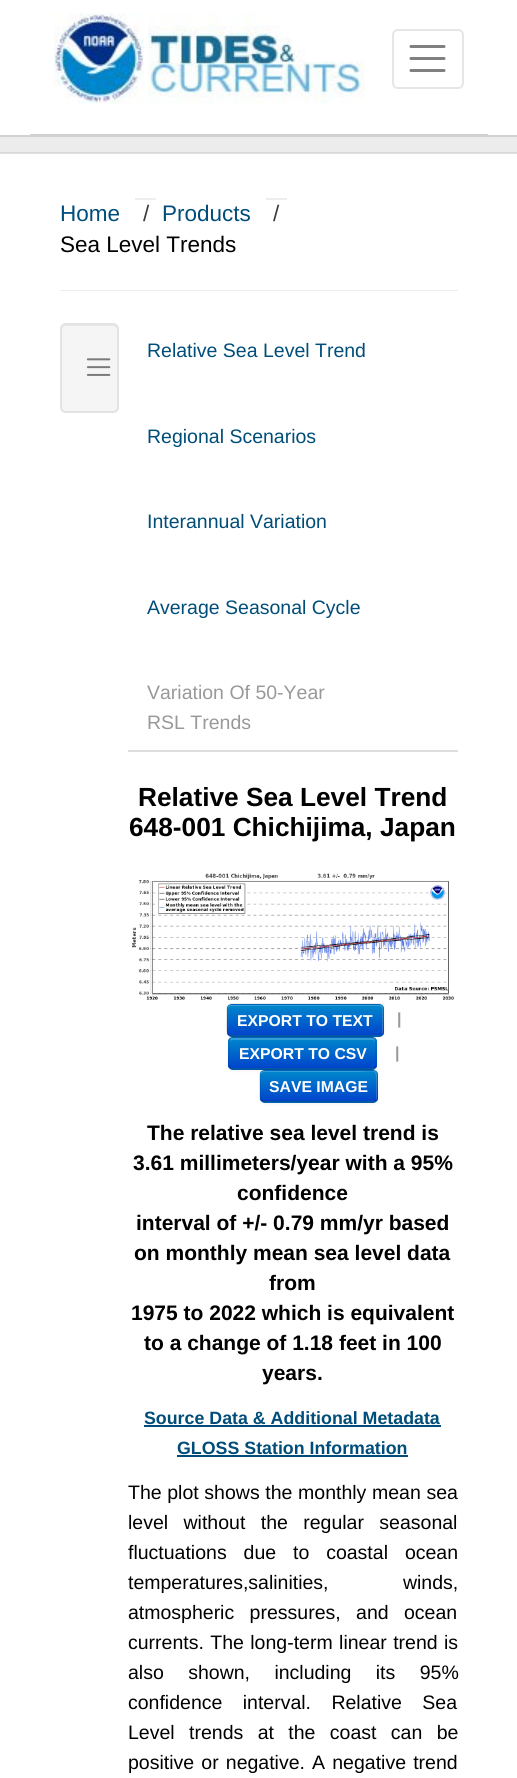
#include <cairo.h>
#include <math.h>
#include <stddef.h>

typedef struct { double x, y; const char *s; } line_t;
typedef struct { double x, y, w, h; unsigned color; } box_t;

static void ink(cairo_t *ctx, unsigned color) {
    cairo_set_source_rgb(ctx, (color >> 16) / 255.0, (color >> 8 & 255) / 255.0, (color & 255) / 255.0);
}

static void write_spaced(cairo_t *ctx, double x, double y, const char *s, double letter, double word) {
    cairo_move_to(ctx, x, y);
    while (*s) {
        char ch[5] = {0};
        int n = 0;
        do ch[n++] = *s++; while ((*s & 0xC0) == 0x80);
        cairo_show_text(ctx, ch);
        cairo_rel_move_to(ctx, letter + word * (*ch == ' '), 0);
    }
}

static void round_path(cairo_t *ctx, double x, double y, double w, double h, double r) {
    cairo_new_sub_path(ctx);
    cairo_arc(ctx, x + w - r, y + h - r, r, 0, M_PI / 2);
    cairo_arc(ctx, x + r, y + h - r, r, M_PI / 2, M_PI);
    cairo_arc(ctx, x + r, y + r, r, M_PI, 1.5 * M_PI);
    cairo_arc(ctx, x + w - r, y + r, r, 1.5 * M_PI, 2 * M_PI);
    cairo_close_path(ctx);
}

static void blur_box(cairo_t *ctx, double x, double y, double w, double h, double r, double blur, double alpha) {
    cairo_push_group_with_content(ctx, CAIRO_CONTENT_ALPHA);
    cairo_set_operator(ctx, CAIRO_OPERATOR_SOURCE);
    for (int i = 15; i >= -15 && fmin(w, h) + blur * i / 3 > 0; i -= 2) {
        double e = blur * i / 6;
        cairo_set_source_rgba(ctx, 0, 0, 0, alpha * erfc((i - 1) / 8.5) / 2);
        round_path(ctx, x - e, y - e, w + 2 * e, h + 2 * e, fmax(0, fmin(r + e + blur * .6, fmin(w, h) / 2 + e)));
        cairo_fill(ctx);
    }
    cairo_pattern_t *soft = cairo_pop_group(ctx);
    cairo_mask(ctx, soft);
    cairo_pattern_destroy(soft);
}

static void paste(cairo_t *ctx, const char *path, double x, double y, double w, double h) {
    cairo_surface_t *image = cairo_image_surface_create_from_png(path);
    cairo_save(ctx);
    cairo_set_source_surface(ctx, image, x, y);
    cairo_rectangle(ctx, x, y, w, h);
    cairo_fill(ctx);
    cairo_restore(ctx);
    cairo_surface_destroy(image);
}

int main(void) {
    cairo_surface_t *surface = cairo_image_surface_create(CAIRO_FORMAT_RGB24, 517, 1778);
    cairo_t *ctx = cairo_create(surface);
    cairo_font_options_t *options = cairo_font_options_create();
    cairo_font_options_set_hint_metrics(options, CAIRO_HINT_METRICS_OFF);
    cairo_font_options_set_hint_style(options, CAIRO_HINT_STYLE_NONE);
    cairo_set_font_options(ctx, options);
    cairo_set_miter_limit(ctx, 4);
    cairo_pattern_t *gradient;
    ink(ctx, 0xFFFFFF);
    cairo_paint(ctx);
    ink(ctx, 0xDFDFDF);
    cairo_rectangle(ctx, 0, 153, 517, 1);
    cairo_fill(ctx);
    ink(ctx, 0xD1D1D1);
    cairo_rectangle(ctx, 30, 134, 458, 1);
    cairo_fill(ctx);
    paste(ctx, "media/1.png", 54, 13, 90, 91);
    paste(ctx, "media/2.png", 148, 13, 217, 91);
    round_path(ctx, 393, 30, 70, 58, 5);
    ink(ctx, 0xE6E6E6);
    cairo_stroke(ctx);
    cairo_new_path(ctx);
    cairo_move_to(ctx, 411, 46.5);
    cairo_line_to(ctx, 444, 46.5);
    cairo_move_to(ctx, 411, 58.5);
    cairo_line_to(ctx, 444, 58.5);
    cairo_move_to(ctx, 411, 70.5);
    cairo_line_to(ctx, 444, 70.5);
    ink(ctx, 0x808080);
    cairo_set_line_width(ctx, 3);
    cairo_set_line_cap(ctx, CAIRO_LINE_CAP_ROUND);
    cairo_stroke(ctx);
    {
        static const box_t items[] = {
            {0, 137, 517, 15, 0xECECEC},
            {0, 152, 517, 1, 0xD9D9D9},
            {0, 135, 517, 2, 0xD1D1D1},
        };
        for (size_t i = 0; i < sizeof items / sizeof *items; i++) {
            ink(ctx, items[i].color);
            cairo_rectangle(ctx, items[i].x, items[i].y, items[i].w, items[i].h);
            cairo_fill(ctx);
        }
    }
    cairo_select_font_face(ctx, "Liberation Sans", CAIRO_FONT_SLANT_NORMAL, CAIRO_FONT_WEIGHT_NORMAL);
    cairo_set_font_size(ctx, 22.5);
    ink(ctx, 0x004D7A);
    cairo_move_to(ctx, 60, 221);
    cairo_show_text(ctx, "Home");
    ink(ctx, 0x3B3B3B);
    cairo_move_to(ctx, 143, 221);
    cairo_show_text(ctx, "/");
    ink(ctx, 0xEEEEEE);
    cairo_rectangle(ctx, 135, 198, 21, 2);
    cairo_fill(ctx);
    ink(ctx, 0x004D7A);
    cairo_move_to(ctx, 162, 221);
    cairo_show_text(ctx, "Products");
    ink(ctx, 0x3B3B3B);
    cairo_move_to(ctx, 273, 221);
    cairo_show_text(ctx, "/");
    ink(ctx, 0xEEEEEE);
    cairo_rectangle(ctx, 266, 198, 21, 2);
    cairo_fill(ctx);
    ink(ctx, 0x000000);
    cairo_move_to(ctx, 60, 252);
    cairo_show_text(ctx, "Sea Level Trends");
    ink(ctx, 0xEEEEEE);
    cairo_rectangle(ctx, 60, 290, 398, 1);
    cairo_fill(ctx);
    ink(ctx, 0xF5F5F5);
    round_path(ctx, 60, 323, 59, 90, 6);
    cairo_fill(ctx);
    ink(ctx, 0xE9E9E9);
    cairo_new_path(ctx);
    cairo_move_to(ctx, 66, 326);
    cairo_line_to(ctx, 112, 326);
    cairo_curve_to(ctx, 115, 326, 117, 328, 117, 330);
    cairo_curve_to(ctx, 117, 322, 110, 324, 104, 324);
    cairo_line_to(ctx, 74, 324);
    cairo_curve_to(ctx, 69, 324, 62, 322, 62, 330);
    cairo_curve_to(ctx, 62, 328, 64, 326, 66, 326);
    cairo_close_path(ctx);
    cairo_fill(ctx);
    round_path(ctx, 61, 324, 57, 88, 5);
    ink(ctx, 0xE3E3E3);
    cairo_set_line_width(ctx, 2);
    cairo_set_line_cap(ctx, CAIRO_LINE_CAP_BUTT);
    cairo_stroke(ctx);
    paste(ctx, "media/3.png", 86, 358, 25, 18);
    ink(ctx, 0xDDDDDD);
    cairo_rectangle(ctx, 128, 750, 330, 2);
    cairo_fill(ctx);
    cairo_set_font_size(ctx, 19.5);
    ink(ctx, 0x004D7A);
    {
        static const line_t items[] = {
            {147, 357, "Relative Sea Level Trend"},
            {147, 443, "Regional Scenarios"},
            {147, 528, "Interannual Variation"},
            {147, 614, "Average Seasonal Cycle"},
        };
        for (size_t i = 0; i < sizeof items / sizeof *items; i++) {
            cairo_move_to(ctx, items[i].x, items[i].y);
            cairo_show_text(ctx, items[i].s);
        }
    }
    ink(ctx, 0x999999);
    cairo_move_to(ctx, 147, 699);
    cairo_show_text(ctx, "Variation Of 50-Year");
    cairo_move_to(ctx, 147, 729);
    cairo_show_text(ctx, "RSL Trends");
    cairo_select_font_face(ctx, "Liberation Sans", CAIRO_FONT_SLANT_NORMAL, CAIRO_FONT_WEIGHT_BOLD);
    cairo_set_font_size(ctx, 26.25);
    ink(ctx, 0x000000);
    cairo_move_to(ctx, 138, 806);
    cairo_show_text(ctx, "Relative Sea Level Trend");
    cairo_move_to(ctx, 129, 836);
    cairo_show_text(ctx, "648-001 Chichijima, Japan");
    paste(ctx, "media/4.png", 132, 873, 322, 127);
    ink(ctx, 0x000000);
    blur_box(ctx, 227, 1005, 157, 33, 5, 1.5, 0.05);
    ink(ctx, 0x006DCC);
    round_path(ctx, 227, 1004, 157, 33, 5);
    cairo_fill(ctx);
    cairo_save(ctx);
    round_path(ctx, 227, 1004, 157, 33, 5);
    cairo_clip(ctx);
    gradient = cairo_pattern_create_linear(305, 1005, 305, 1035);
    cairo_pattern_add_color_stop_rgba(gradient, 0, 0, 0.533, 0.8, 1);
    cairo_pattern_add_color_stop_rgba(gradient, 1, 0, 0.267, 0.8, 1);
    cairo_set_source(ctx, gradient);
    cairo_pattern_destroy(gradient);
    cairo_rectangle(ctx, 227, 1005, 157, 30);
    cairo_fill(ctx);
    cairo_restore(ctx);
    cairo_set_source_rgba(ctx, 1, 1, 1, 0.2);
    cairo_new_path(ctx);
    cairo_move_to(ctx, 231, 1006);
    cairo_line_to(ctx, 380, 1006);
    cairo_curve_to(ctx, 383, 1006, 382, 1017, 382, 1018);
    cairo_line_to(ctx, 382, 1034);
    cairo_curve_to(ctx, 383, 1034, 383, 1033, 383, 1032);
    cairo_line_to(ctx, 383, 1008);
    cairo_curve_to(ctx, 383, 1006, 382, 1005, 380, 1005);
    cairo_line_to(ctx, 231, 1005);
    cairo_curve_to(ctx, 229, 1005, 228, 1006, 228, 1008);
    cairo_line_to(ctx, 228, 1010);
    cairo_curve_to(ctx, 228, 1008, 229, 1006, 231, 1006);
    cairo_close_path(ctx);
    cairo_fill(ctx);
    cairo_new_path(ctx);
    cairo_move_to(ctx, 382, 1034.5);
    cairo_curve_to(ctx, 381.5, 1035.5, 380.5, 1036, 379.5, 1036);
    cairo_line_to(ctx, 231, 1036);
    cairo_curve_to(ctx, 230, 1036, 229, 1035.5, 228.5, 1034.5);
    cairo_set_source_rgba(ctx, 0, 0, 0, 0.25);
    cairo_set_line_width(ctx, 1.5);
    cairo_stroke(ctx);
    cairo_new_path(ctx);
    cairo_move_to(ctx, 228.5, 1034.5);
    cairo_curve_to(ctx, 226, 1032.5, 227, 1023, 227, 1020);
    cairo_line_to(ctx, 227, 1012);
    cairo_curve_to(ctx, 227, 1009, 226.5, 1004.5, 231, 1004);
    cairo_line_to(ctx, 379.5, 1004);
    cairo_curve_to(ctx, 384, 1004.5, 383, 1009, 383, 1012);
    cairo_line_to(ctx, 383, 1020);
    cairo_curve_to(ctx, 383, 1023, 384.5, 1032.5, 382, 1034.5);
    cairo_set_source_rgba(ctx, 0, 0, 0, 0.1);
    cairo_stroke(ctx);
    cairo_set_font_size(ctx, 15.75);
    ink(ctx, 0xFFFFFF);
    cairo_move_to(ctx, 237, 1026);
    cairo_show_text(ctx, "EXPORT TO TEXT");
    cairo_set_font_size(ctx, 16);
    ink(ctx, 0x999999);
    cairo_move_to(ctx, 397, 1024);
    cairo_show_text(ctx, "|");
    ink(ctx, 0x000000);
    blur_box(ctx, 228, 1038, 149, 33, 5, 1.5, 0.05);
    ink(ctx, 0x006DCC);
    round_path(ctx, 228, 1037, 149, 33, 5);
    cairo_fill(ctx);
    cairo_save(ctx);
    round_path(ctx, 228, 1037, 149, 33, 5);
    cairo_clip(ctx);
    gradient = cairo_pattern_create_linear(302, 1038, 302, 1068);
    cairo_pattern_add_color_stop_rgba(gradient, 0, 0, 0.533, 0.8, 1);
    cairo_pattern_add_color_stop_rgba(gradient, 1, 0, 0.267, 0.8, 1);
    cairo_set_source(ctx, gradient);
    cairo_pattern_destroy(gradient);
    cairo_rectangle(ctx, 228, 1038, 149, 30);
    cairo_fill(ctx);
    cairo_restore(ctx);
    cairo_set_source_rgba(ctx, 1, 1, 1, 0.2);
    cairo_new_path(ctx);
    cairo_move_to(ctx, 232, 1040);
    cairo_line_to(ctx, 372, 1040);
    cairo_curve_to(ctx, 374, 1040, 375, 1041, 375, 1042);
    cairo_line_to(ctx, 375, 1041);
    cairo_curve_to(ctx, 375, 1039, 374, 1038, 372, 1038);
    cairo_line_to(ctx, 233, 1038);
    cairo_curve_to(ctx, 231, 1038, 230, 1039, 230, 1041);
    cairo_line_to(ctx, 230, 1042);
    cairo_curve_to(ctx, 230, 1041, 231, 1040, 232, 1040);
    cairo_close_path(ctx);
    cairo_fill(ctx);
    cairo_new_path(ctx);
    cairo_move_to(ctx, 374.5, 1067.5);
    cairo_curve_to(ctx, 374, 1068.5, 373, 1069, 372, 1069);
    cairo_line_to(ctx, 232.5, 1069);
    cairo_curve_to(ctx, 231.5, 1069, 230.5, 1068.5, 230, 1067.5);
    cairo_set_source_rgba(ctx, 0, 0, 0, 0.25);
    cairo_stroke(ctx);
    cairo_new_path(ctx);
    cairo_move_to(ctx, 230, 1067.5);
    cairo_curve_to(ctx, 227.5, 1065.5, 229, 1056, 229, 1053);
    cairo_line_to(ctx, 229, 1045);
    cairo_curve_to(ctx, 229, 1042, 228, 1037.5, 232.5, 1037);
    cairo_line_to(ctx, 372, 1037);
    cairo_curve_to(ctx, 376.5, 1037.5, 376, 1042, 376, 1045);
    cairo_line_to(ctx, 376, 1053);
    cairo_curve_to(ctx, 376, 1056, 377, 1065.5, 374.5, 1067.5);
    cairo_set_source_rgba(ctx, 0, 0, 0, 0.1);
    cairo_stroke(ctx);
    cairo_set_font_size(ctx, 15.75);
    ink(ctx, 0xFFFFFF);
    cairo_move_to(ctx, 239, 1059);
    cairo_show_text(ctx, "EXPORT TO CSV");
    cairo_set_font_size(ctx, 16);
    ink(ctx, 0x999999);
    cairo_move_to(ctx, 395, 1058);
    cairo_show_text(ctx, "|");
    ink(ctx, 0x000000);
    blur_box(ctx, 260, 1071, 118, 33, 5, 1.5, 0.05);
    ink(ctx, 0x006DCC);
    round_path(ctx, 260, 1070, 118, 33, 5);
    cairo_fill(ctx);
    cairo_save(ctx);
    round_path(ctx, 260, 1070, 118, 33, 5);
    cairo_clip(ctx);
    gradient = cairo_pattern_create_linear(319, 1071, 319, 1101);
    cairo_pattern_add_color_stop_rgba(gradient, 0, 0, 0.533, 0.8, 1);
    cairo_pattern_add_color_stop_rgba(gradient, 1, 0, 0.267, 0.8, 1);
    cairo_set_source(ctx, gradient);
    cairo_pattern_destroy(gradient);
    cairo_rectangle(ctx, 260, 1071, 118, 30);
    cairo_fill(ctx);
    cairo_restore(ctx);
    cairo_set_source_rgba(ctx, 1, 1, 1, 0.2);
    cairo_new_path(ctx);
    cairo_move_to(ctx, 264, 1072);
    cairo_line_to(ctx, 356, 1072);
    cairo_curve_to(ctx, 377, 1072, 376, 1067, 376, 1084);
    cairo_line_to(ctx, 376, 1100);
    cairo_curve_to(ctx, 377, 1100, 377, 1099, 377, 1098);
    cairo_line_to(ctx, 377, 1074);
    cairo_curve_to(ctx, 377, 1072, 376, 1071, 374, 1071);
    cairo_line_to(ctx, 264, 1071);
    cairo_curve_to(ctx, 262, 1071, 261, 1072, 261, 1074);
    cairo_line_to(ctx, 261, 1076);
    cairo_curve_to(ctx, 261, 1074, 262, 1072, 264, 1072);
    cairo_close_path(ctx);
    cairo_fill(ctx);
    cairo_new_path(ctx);
    cairo_move_to(ctx, 376, 1100.5);
    cairo_line_to(ctx, 373.5, 1102);
    cairo_line_to(ctx, 263.5, 1101.5);
    cairo_line_to(ctx, 261.5, 1100.5);
    cairo_set_source_rgba(ctx, 0, 0, 0, 0.25);
    cairo_stroke(ctx);
    cairo_new_path(ctx);
    cairo_move_to(ctx, 261.5, 1100.5);
    cairo_curve_to(ctx, 259, 1098, 260, 1093, 260, 1090);
    cairo_curve_to(ctx, 260, 1066, 256.5, 1070, 282, 1070);
    cairo_line_to(ctx, 355, 1070);
    cairo_curve_to(ctx, 381, 1070, 377, 1066, 377, 1090);
    cairo_curve_to(ctx, 377, 1093, 378.5, 1098, 376, 1100.5);
    cairo_set_source_rgba(ctx, 0, 0, 0, 0.1);
    cairo_stroke(ctx);
    cairo_set_font_size(ctx, 15.75);
    ink(ctx, 0xFFFFFF);
    cairo_move_to(ctx, 269, 1092);
    cairo_show_text(ctx, "SAVE IMAGE");
    cairo_set_font_size(ctx, 21);
    ink(ctx, 0x000000);
    {
        static const line_t items[] = {
            {147, 1140, "The relative sea level trend is"},
            {133, 1170, "3.61 millimeters/year with a 95%"},
            {237, 1200, "confidence"},
            {136, 1230, "interval of +/- 0.79 mm/yr based"},
            {134, 1260, "on monthly mean sea level data"},
            {269, 1290, "from"},
            {131, 1320, "1975 to 2022 which is equivalent"},
            {144, 1350, "to a change of 1.18 feet in 100"},
            {262, 1380, "years."},
        };
        for (size_t i = 0; i < sizeof items / sizeof *items; i++) {
            cairo_move_to(ctx, items[i].x, items[i].y);
            cairo_show_text(ctx, items[i].s);
        }
    }
    cairo_set_font_size(ctx, 17.8);
    ink(ctx, 0x004D7A);
    cairo_move_to(ctx, 144, 1424);
    cairo_show_text(ctx, "Source Data & Additional Metadata");
    cairo_rectangle(ctx, 144, 1425, 297, 2);
    cairo_fill(ctx);
    cairo_move_to(ctx, 177, 1454);
    cairo_show_text(ctx, "GLOSS Station Information");
    cairo_rectangle(ctx, 177, 1455, 231, 2);
    cairo_fill(ctx);
    cairo_select_font_face(ctx, "Liberation Sans", CAIRO_FONT_SLANT_NORMAL, CAIRO_FONT_WEIGHT_NORMAL);
    cairo_set_font_size(ctx, 19.5);
    ink(ctx, 0x000000);
    write_spaced(ctx, 128, 1499, "The plot shows the monthly mean sea", 0, 0.25);
    write_spaced(ctx, 128, 1529, "level without the regular seasonal", 0, 10);
    write_spaced(ctx, 128, 1559, "fluctuations due to coastal ocean", 0, 11.5);
    write_spaced(ctx, 128, 1589, "temperatures,salinities, winds,", 0, 69);
    write_spaced(ctx, 128, 1619, "atmospheric pressures, and ocean", 0, 10);
    write_spaced(ctx, 128, 1649, "currents. The long-term linear trend is", 0, 1);
    write_spaced(ctx, 128, 1679, "also shown, including its 95%", 0, 19);
    write_spaced(ctx, 128, 1709, "confidence interval. Relative Sea", 0, 15);
    write_spaced(ctx, 128, 1739, "Level trends at the coast can be", 0, 9);
    write_spaced(ctx, 128, 1769, "positive or negative. A negative trend", 0, 1.75);
    cairo_surface_write_to_png(surface, "image.png");
    cairo_font_options_destroy(options);
    cairo_destroy(ctx);
    cairo_surface_destroy(surface);
    return 0;
}
